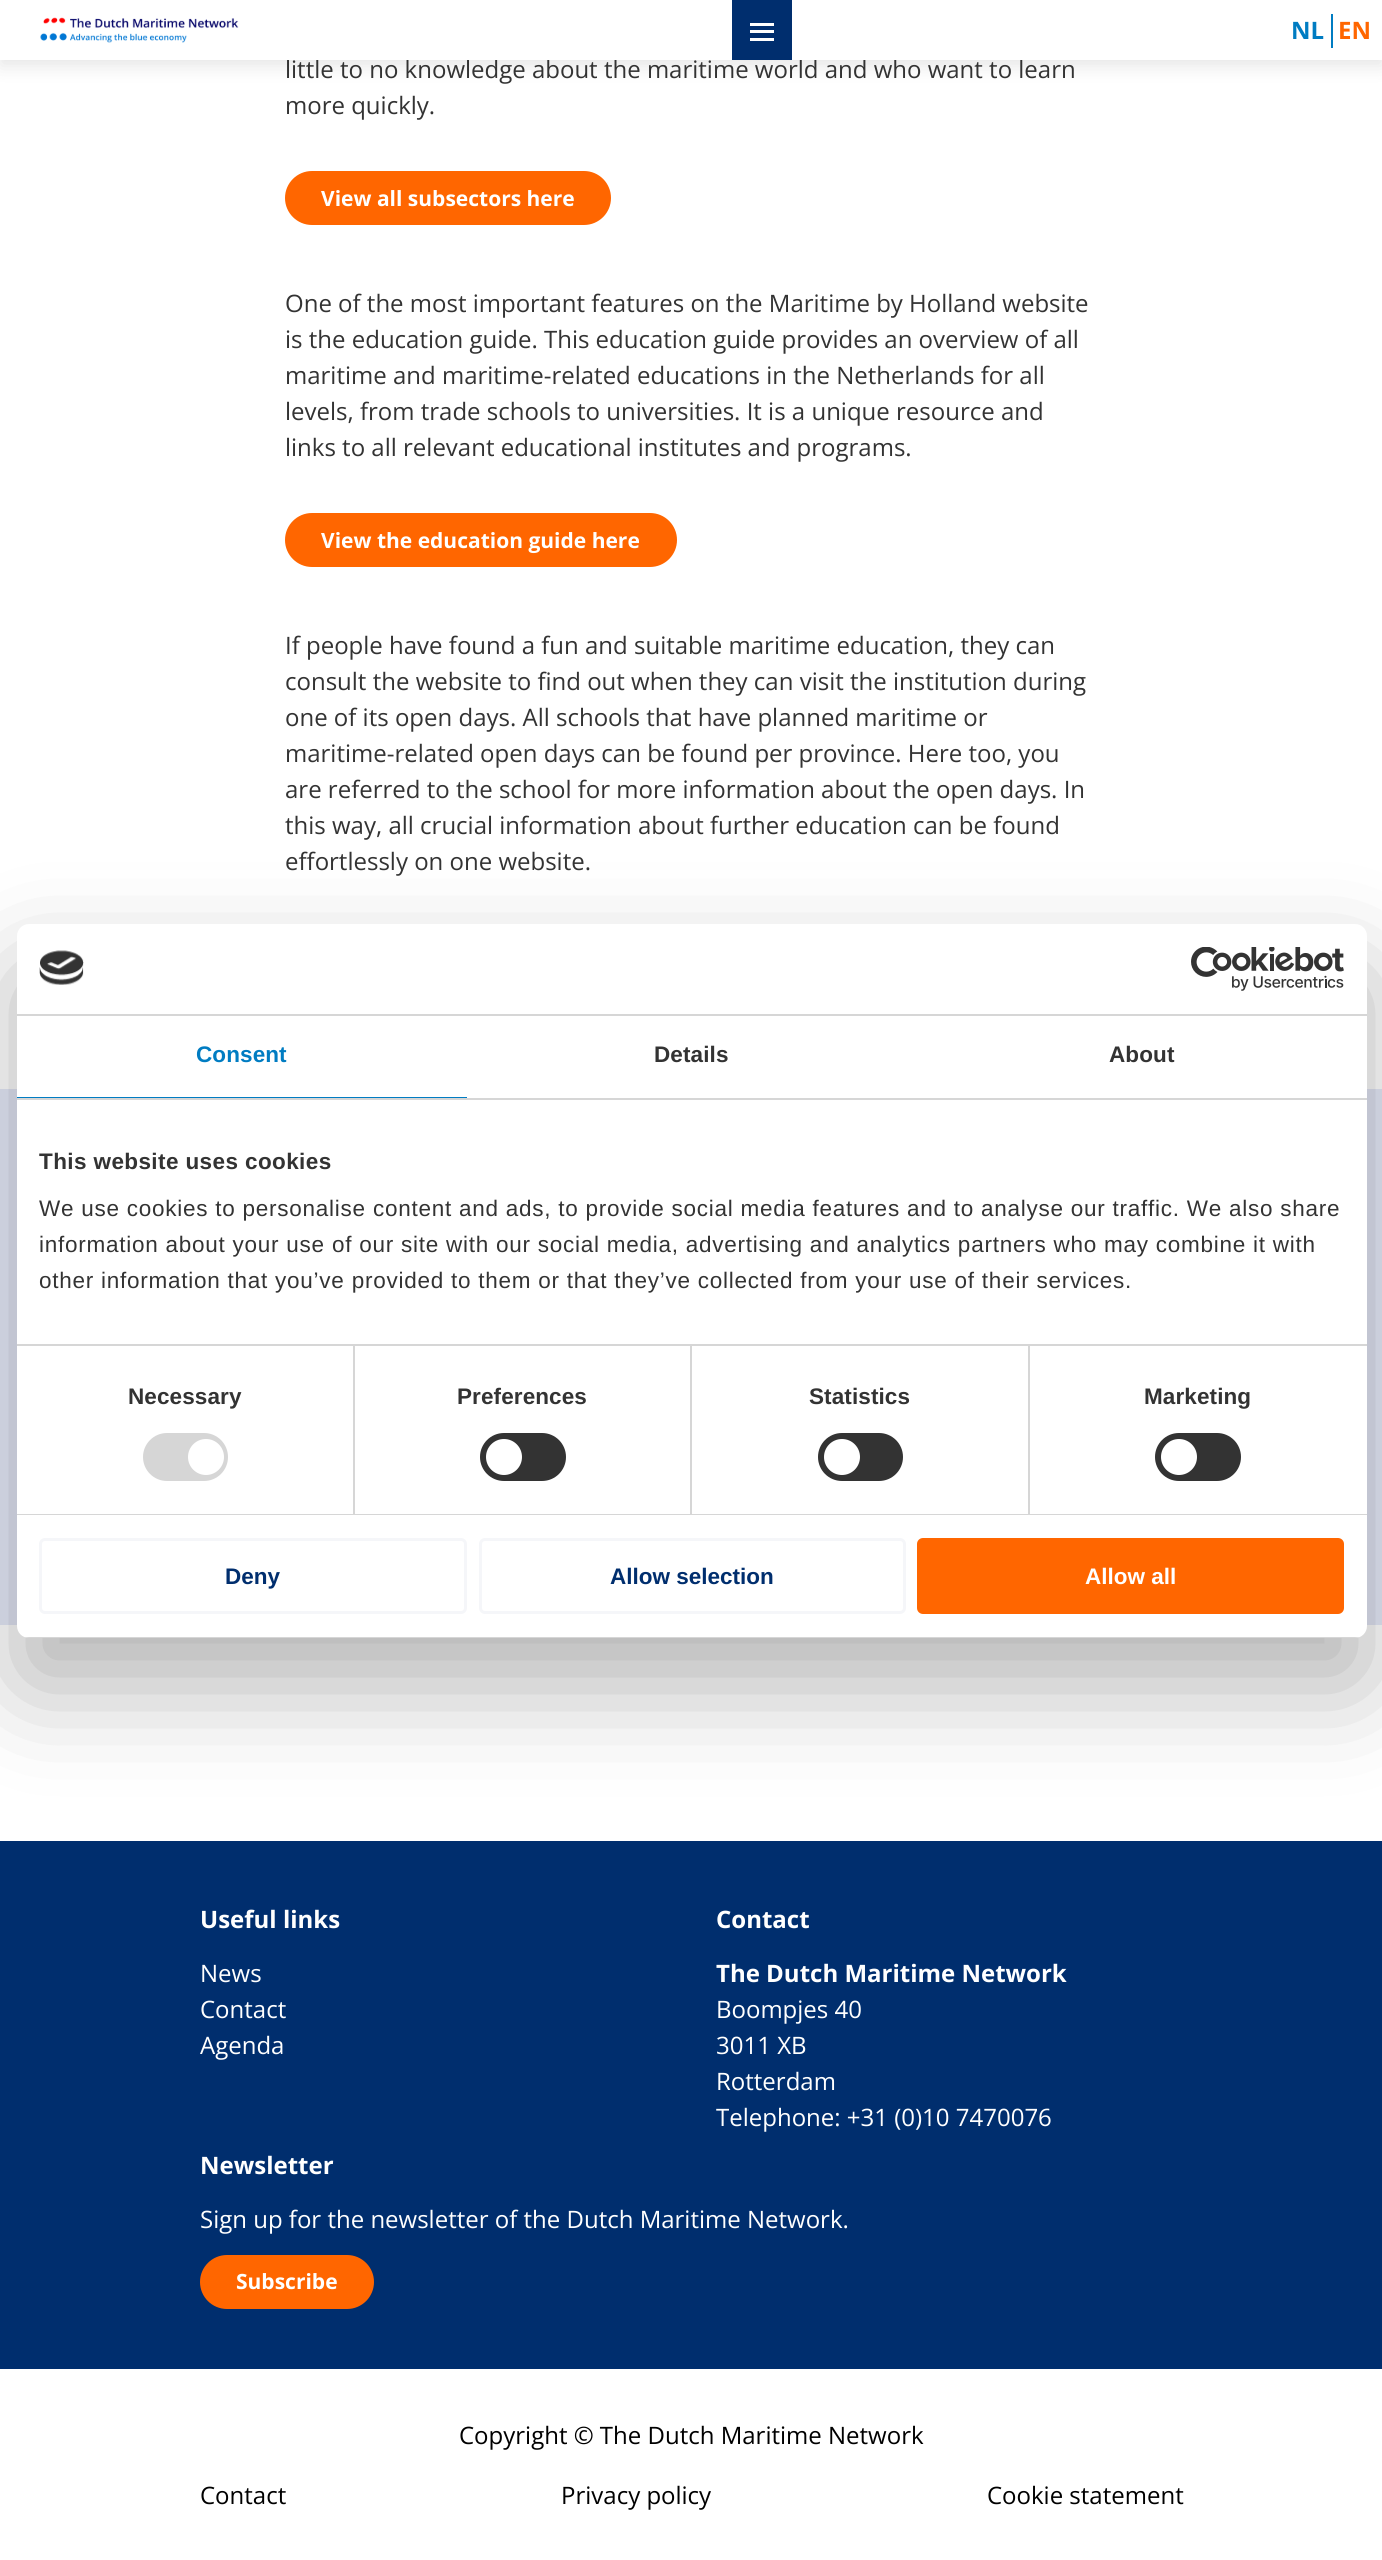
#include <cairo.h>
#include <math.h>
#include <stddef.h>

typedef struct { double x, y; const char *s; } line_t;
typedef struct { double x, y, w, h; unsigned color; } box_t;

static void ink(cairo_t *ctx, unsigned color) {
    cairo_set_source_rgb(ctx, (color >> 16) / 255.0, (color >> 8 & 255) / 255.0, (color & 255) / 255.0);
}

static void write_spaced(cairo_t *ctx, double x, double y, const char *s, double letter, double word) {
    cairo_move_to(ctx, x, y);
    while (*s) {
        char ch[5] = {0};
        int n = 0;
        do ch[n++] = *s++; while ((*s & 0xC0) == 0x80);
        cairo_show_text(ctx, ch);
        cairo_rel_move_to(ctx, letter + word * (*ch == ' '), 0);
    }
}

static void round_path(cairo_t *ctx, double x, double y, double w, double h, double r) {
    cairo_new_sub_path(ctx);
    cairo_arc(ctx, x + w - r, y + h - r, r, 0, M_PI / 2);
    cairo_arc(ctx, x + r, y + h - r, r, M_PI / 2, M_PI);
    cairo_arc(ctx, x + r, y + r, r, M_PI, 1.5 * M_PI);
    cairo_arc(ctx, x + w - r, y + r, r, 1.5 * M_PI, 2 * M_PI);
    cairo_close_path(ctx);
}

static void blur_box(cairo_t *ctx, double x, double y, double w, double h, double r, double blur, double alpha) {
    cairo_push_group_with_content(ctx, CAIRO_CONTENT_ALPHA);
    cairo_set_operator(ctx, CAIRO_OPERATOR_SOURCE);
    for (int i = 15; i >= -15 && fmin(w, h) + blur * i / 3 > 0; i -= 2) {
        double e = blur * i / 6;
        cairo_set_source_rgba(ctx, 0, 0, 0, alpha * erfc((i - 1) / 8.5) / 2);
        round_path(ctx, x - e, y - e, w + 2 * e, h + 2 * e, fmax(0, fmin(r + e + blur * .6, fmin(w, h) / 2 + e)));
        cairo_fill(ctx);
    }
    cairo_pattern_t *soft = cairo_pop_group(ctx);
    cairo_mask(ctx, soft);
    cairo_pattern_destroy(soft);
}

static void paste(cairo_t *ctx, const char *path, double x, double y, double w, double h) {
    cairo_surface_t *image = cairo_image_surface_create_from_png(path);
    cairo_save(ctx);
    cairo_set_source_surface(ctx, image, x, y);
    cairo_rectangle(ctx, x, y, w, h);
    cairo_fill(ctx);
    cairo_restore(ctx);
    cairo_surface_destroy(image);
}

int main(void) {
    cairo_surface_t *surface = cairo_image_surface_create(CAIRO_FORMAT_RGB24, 1382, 2560);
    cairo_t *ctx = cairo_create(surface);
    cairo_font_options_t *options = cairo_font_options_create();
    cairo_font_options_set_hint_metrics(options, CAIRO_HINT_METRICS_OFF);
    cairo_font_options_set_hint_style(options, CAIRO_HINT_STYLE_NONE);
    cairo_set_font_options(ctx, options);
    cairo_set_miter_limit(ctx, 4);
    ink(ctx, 0xFFFFFF);
    cairo_paint(ctx);
    ink(ctx, 0x000000);
    blur_box(ctx, 0, 6, 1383, 60, 0, 9, 0.1);
    cairo_select_font_face(ctx, "Open Sans", CAIRO_FONT_SLANT_NORMAL, CAIRO_FONT_WEIGHT_NORMAL);
    cairo_set_font_size(ctx, 24);
    ink(ctx, 0x333333);
    cairo_move_to(ctx, 285, 78);
    cairo_show_text(ctx, "little to no knowledge about the maritime world and who want to learn");
    ink(ctx, 0xFFFFFF);
    cairo_rectangle(ctx, 0, 0, 1382, 60);
    cairo_fill(ctx);
    paste(ctx, "media/1.png", 40, 17, 199, 26);
    {
        static const box_t items[] = {
            {732, 0, 60, 60, 0x002E6E},
            {750, 23, 24, 3, 0xFFFFFF},
            {750, 30, 24, 3, 0xFFFFFF},
            {750, 38, 24, 3, 0xFFFFFF},
        };
        for (size_t i = 0; i < sizeof items / sizeof *items; i++) {
            ink(ctx, items[i].color);
            cairo_rectangle(ctx, items[i].x, items[i].y, items[i].w, items[i].h);
            cairo_fill(ctx);
        }
    }
    cairo_select_font_face(ctx, "Open Sans", CAIRO_FONT_SLANT_NORMAL, CAIRO_FONT_WEIGHT_BOLD);
    ink(ctx, 0x007CC2);
    cairo_move_to(ctx, 1291, 39);
    cairo_show_text(ctx, "NL");
    cairo_rectangle(ctx, 1331, 14, 2, 34);
    cairo_fill(ctx);
    ink(ctx, 0xFF6600);
    cairo_move_to(ctx, 1338, 39);
    cairo_show_text(ctx, "EN");
    cairo_select_font_face(ctx, "Open Sans", CAIRO_FONT_SLANT_NORMAL, CAIRO_FONT_WEIGHT_NORMAL);
    ink(ctx, 0x333333);
    cairo_move_to(ctx, 285, 114);
    cairo_show_text(ctx, "more quickly.");
    ink(ctx, 0xFF6600);
    round_path(ctx, 285, 171, 326, 54, 27);
    cairo_fill(ctx);
    cairo_select_font_face(ctx, "Open Sans", CAIRO_FONT_SLANT_NORMAL, CAIRO_FONT_WEIGHT_BOLD);
    cairo_set_font_size(ctx, 21);
    ink(ctx, 0xFFFFFF);
    cairo_move_to(ctx, 321, 206);
    cairo_show_text(ctx, "View all subsectors here");
    cairo_select_font_face(ctx, "Open Sans", CAIRO_FONT_SLANT_NORMAL, CAIRO_FONT_WEIGHT_NORMAL);
    cairo_set_font_size(ctx, 24);
    ink(ctx, 0x333333);
    {
        static const line_t items[] = {
            {285, 312, "One of the most important features on the Maritime by Holland website"},
            {285, 348, "is the education guide. This education guide provides an overview of all"},
            {285, 384, "maritime and maritime-related educations in the Netherlands for all"},
            {285, 420, "levels, from trade schools to universities. It is a unique resource and"},
            {285, 456, "links to all relevant educational institutes and programs."},
        };
        for (size_t i = 0; i < sizeof items / sizeof *items; i++) {
            cairo_move_to(ctx, items[i].x, items[i].y);
            cairo_show_text(ctx, items[i].s);
        }
    }
    ink(ctx, 0xFF6600);
    round_path(ctx, 285, 513, 392, 54, 27);
    cairo_fill(ctx);
    cairo_select_font_face(ctx, "Open Sans", CAIRO_FONT_SLANT_NORMAL, CAIRO_FONT_WEIGHT_BOLD);
    cairo_set_font_size(ctx, 21);
    ink(ctx, 0xFFFFFF);
    cairo_move_to(ctx, 321, 548);
    cairo_show_text(ctx, "View the education guide here");
    cairo_select_font_face(ctx, "Open Sans", CAIRO_FONT_SLANT_NORMAL, CAIRO_FONT_WEIGHT_NORMAL);
    cairo_set_font_size(ctx, 24);
    ink(ctx, 0x333333);
    {
        static const line_t items[] = {
            {285, 654, "If people have found a fun and suitable maritime education, they can"},
            {285, 690, "consult the website to find out when they can visit the institution during"},
            {285, 726, "one of its open days. All schools that have planned maritime or"},
            {285, 762, "maritime-related open days can be found per province. Here too, you"},
            {285, 798, "are referred to the school for more information about the open days. In"},
            {285, 834, "this way, all crucial information about further education can be found"},
            {285, 870, "effortlessly on one website."},
        };
        for (size_t i = 0; i < sizeof items / sizeof *items; i++) {
            cairo_move_to(ctx, items[i].x, items[i].y);
            cairo_show_text(ctx, items[i].s);
        }
    }
    ink(ctx, 0xE4E8F7);
    cairo_rectangle(ctx, 0, 1089, 1382, 536);
    cairo_fill(ctx);
    ink(ctx, 0x000000);
    blur_box(ctx, 17, 972, 1350, 714, 12, 51, 0.3);
    ink(ctx, 0xFFFFFF);
    round_path(ctx, 17, 924, 1350, 714, 12);
    cairo_fill(ctx);
    ink(ctx, 0xD6D6D6);
    cairo_rectangle(ctx, 17, 1014, 1350, 2);
    cairo_fill(ctx);
    paste(ctx, "media/2.png", 39, 950, 45, 35);
    paste(ctx, "media/3.png", 1191, 947, 153, 44);
    cairo_rectangle(ctx, 17, 1098, 1350, 2);
    cairo_fill(ctx);
    ink(ctx, 0x007CC2);
    cairo_rectangle(ctx, 17, 1097, 450, 1);
    cairo_fill(ctx);
    cairo_select_font_face(ctx, "Liberation Sans", CAIRO_FONT_SLANT_NORMAL, CAIRO_FONT_WEIGHT_BOLD);
    cairo_set_font_size(ctx, 22.5);
    write_spaced(ctx, 196, 1062, "Consent", 0.1, 0);
    ink(ctx, 0x333333);
    write_spaced(ctx, 654, 1062, "Details", 0.1, 0);
    write_spaced(ctx, 1109, 1062, "About", 0.1, 0);
    ink(ctx, 0xD6D6D6);
    cairo_rectangle(ctx, 17, 1344, 1350, 2);
    cairo_fill(ctx);
    ink(ctx, 0x333333);
    write_spaced(ctx, 39, 1169, "This website uses cookies", 0.4, 0);
    cairo_select_font_face(ctx, "Liberation Sans", CAIRO_FONT_SLANT_NORMAL, CAIRO_FONT_WEIGHT_NORMAL);
    {
        static const line_t items[] = {
            {39, 1216, "We use cookies to personalise content and ads, to provide social media features and to analyse our traffic. We also share"},
            {39, 1252, "information about your use of our site with our social media, advertising and analytics partners who may combine it with"},
            {39, 1288, "other information that you’ve provided to them or that they’ve collected from your use of their services."},
        };
        for (size_t i = 0; i < sizeof items / sizeof *items; i++) {
            write_spaced(ctx, items[i].x, items[i].y, items[i].s, 0.75, 0);
        }
    }
    ink(ctx, 0xD6D6D6);
    cairo_rectangle(ctx, 17, 1514, 1350, 1);
    cairo_fill(ctx);
    cairo_rectangle(ctx, 353, 1346, 2, 168);
    cairo_fill(ctx);
    cairo_select_font_face(ctx, "Liberation Sans", CAIRO_FONT_SLANT_NORMAL, CAIRO_FONT_WEIGHT_BOLD);
    ink(ctx, 0x333333);
    write_spaced(ctx, 128, 1404, "Necessary", 0.1, 0);
    ink(ctx, 0xD6D6D6);
    round_path(ctx, 143, 1433, 85, 48, 24);
    cairo_fill(ctx);
    ink(ctx, 0xFFFFFF);
    cairo_arc(ctx, 206, 1457, 18, 0, 2 * M_PI);
    cairo_fill(ctx);
    ink(ctx, 0xD6D6D6);
    cairo_rectangle(ctx, 690, 1346, 2, 168);
    cairo_fill(ctx);
    ink(ctx, 0x333333);
    write_spaced(ctx, 457, 1404, "Preferences", 0.1, 0);
    round_path(ctx, 480, 1433, 86, 48, 24);
    cairo_fill(ctx);
    ink(ctx, 0xFFFFFF);
    cairo_arc(ctx, 504, 1457, 18, 0, 2 * M_PI);
    cairo_fill(ctx);
    ink(ctx, 0xD6D6D6);
    cairo_rectangle(ctx, 1028, 1346, 2, 168);
    cairo_fill(ctx);
    ink(ctx, 0x333333);
    write_spaced(ctx, 809, 1404, "Statistics", 0.1, 0);
    round_path(ctx, 818, 1433, 85, 48, 24);
    cairo_fill(ctx);
    ink(ctx, 0xFFFFFF);
    cairo_arc(ctx, 842, 1457, 18, 0, 2 * M_PI);
    cairo_fill(ctx);
    ink(ctx, 0x333333);
    write_spaced(ctx, 1144, 1404, "Marketing", 0.1, 0);
    round_path(ctx, 1155, 1433, 86, 48, 24);
    cairo_fill(ctx);
    ink(ctx, 0xFFFFFF);
    cairo_arc(ctx, 1179, 1457, 18, 0, 2 * M_PI);
    cairo_fill(ctx);
    cairo_save(ctx);
    round_path(ctx, 17, 924, 1350, 714, 12);
    cairo_clip(ctx);
    ink(ctx, 0xD6D6D6);
    cairo_rectangle(ctx, 17, 1637, 1350, 1);
    cairo_fill(ctx);
    cairo_restore(ctx);
    round_path(ctx, 40.5, 1539.5, 425, 73, 4.5);
    ink(ctx, 0xF5F6F9);
    cairo_set_line_width(ctx, 3);
    cairo_stroke(ctx);
    ink(ctx, 0x002E6E);
    cairo_move_to(ctx, 225, 1584);
    cairo_show_text(ctx, "Deny");
    round_path(ctx, 480.5, 1539.5, 424, 73, 4.5);
    ink(ctx, 0xF5F6F9);
    cairo_stroke(ctx);
    ink(ctx, 0x002E6E);
    cairo_move_to(ctx, 610, 1584);
    cairo_show_text(ctx, "Allow selection");
    ink(ctx, 0xFF6600);
    round_path(ctx, 918.5, 1539.5, 424, 73, 4.5);
    cairo_fill_preserve(ctx);
    cairo_stroke(ctx);
    ink(ctx, 0xFFFFFF);
    cairo_move_to(ctx, 1085, 1584);
    cairo_show_text(ctx, "Allow all");
    ink(ctx, 0x002E6E);
    cairo_rectangle(ctx, 0, 1841, 1382, 528);
    cairo_fill(ctx);
    cairo_select_font_face(ctx, "Open Sans", CAIRO_FONT_SLANT_NORMAL, CAIRO_FONT_WEIGHT_BOLD);
    cairo_set_font_size(ctx, 24);
    ink(ctx, 0xFFFFFF);
    cairo_move_to(ctx, 200, 1928);
    cairo_show_text(ctx, "Useful links");
    cairo_select_font_face(ctx, "Open Sans", CAIRO_FONT_SLANT_NORMAL, CAIRO_FONT_WEIGHT_NORMAL);
    {
        static const line_t items[] = {
            {200, 1982, "News"},
            {200, 2018, "Contact"},
            {200, 2054, "Agenda"},
        };
        for (size_t i = 0; i < sizeof items / sizeof *items; i++) {
            cairo_move_to(ctx, items[i].x, items[i].y);
            cairo_show_text(ctx, items[i].s);
        }
    }
    cairo_select_font_face(ctx, "Open Sans", CAIRO_FONT_SLANT_NORMAL, CAIRO_FONT_WEIGHT_BOLD);
    cairo_move_to(ctx, 716, 1928);
    cairo_show_text(ctx, "Contact");
    cairo_move_to(ctx, 716, 1982);
    cairo_show_text(ctx, "The Dutch Maritime Network");
    cairo_select_font_face(ctx, "Open Sans", CAIRO_FONT_SLANT_NORMAL, CAIRO_FONT_WEIGHT_NORMAL);
    {
        static const line_t items[] = {
            {716, 2018, "Boompjes 40"},
            {716, 2054, "3011 XB"},
            {716, 2090, "Rotterdam"},
            {716, 2126, "Telephone: +31 (0)10 7470076"},
        };
        for (size_t i = 0; i < sizeof items / sizeof *items; i++) {
            cairo_move_to(ctx, items[i].x, items[i].y);
            cairo_show_text(ctx, items[i].s);
        }
    }
    cairo_select_font_face(ctx, "Open Sans", CAIRO_FONT_SLANT_NORMAL, CAIRO_FONT_WEIGHT_BOLD);
    cairo_move_to(ctx, 200, 2174);
    cairo_show_text(ctx, "Newsletter");
    cairo_select_font_face(ctx, "Open Sans", CAIRO_FONT_SLANT_NORMAL, CAIRO_FONT_WEIGHT_NORMAL);
    cairo_move_to(ctx, 200, 2228);
    cairo_show_text(ctx, "Sign up for the newsletter of the Dutch Maritime Network.");
    ink(ctx, 0xFF6600);
    round_path(ctx, 200, 2255, 174, 54, 27);
    cairo_fill(ctx);
    cairo_select_font_face(ctx, "Open Sans", CAIRO_FONT_SLANT_NORMAL, CAIRO_FONT_WEIGHT_BOLD);
    cairo_set_font_size(ctx, 21);
    ink(ctx, 0xFFFFFF);
    cairo_move_to(ctx, 236, 2289);
    cairo_show_text(ctx, "Subscribe");
    cairo_select_font_face(ctx, "Open Sans", CAIRO_FONT_SLANT_NORMAL, CAIRO_FONT_WEIGHT_NORMAL);
    cairo_set_font_size(ctx, 24);
    ink(ctx, 0x000000);
    {
        static const line_t items[] = {
            {459, 2444, "Copyright © The Dutch Maritime Network"},
            {200, 2504, "Contact"},
            {561, 2504, "Privacy policy"},
            {987, 2504, "Cookie statement"},
        };
        for (size_t i = 0; i < sizeof items / sizeof *items; i++) {
            cairo_move_to(ctx, items[i].x, items[i].y);
            cairo_show_text(ctx, items[i].s);
        }
    }
    cairo_surface_write_to_png(surface, "image.png");
    cairo_font_options_destroy(options);
    cairo_destroy(ctx);
    cairo_surface_destroy(surface);
    return 0;
}
